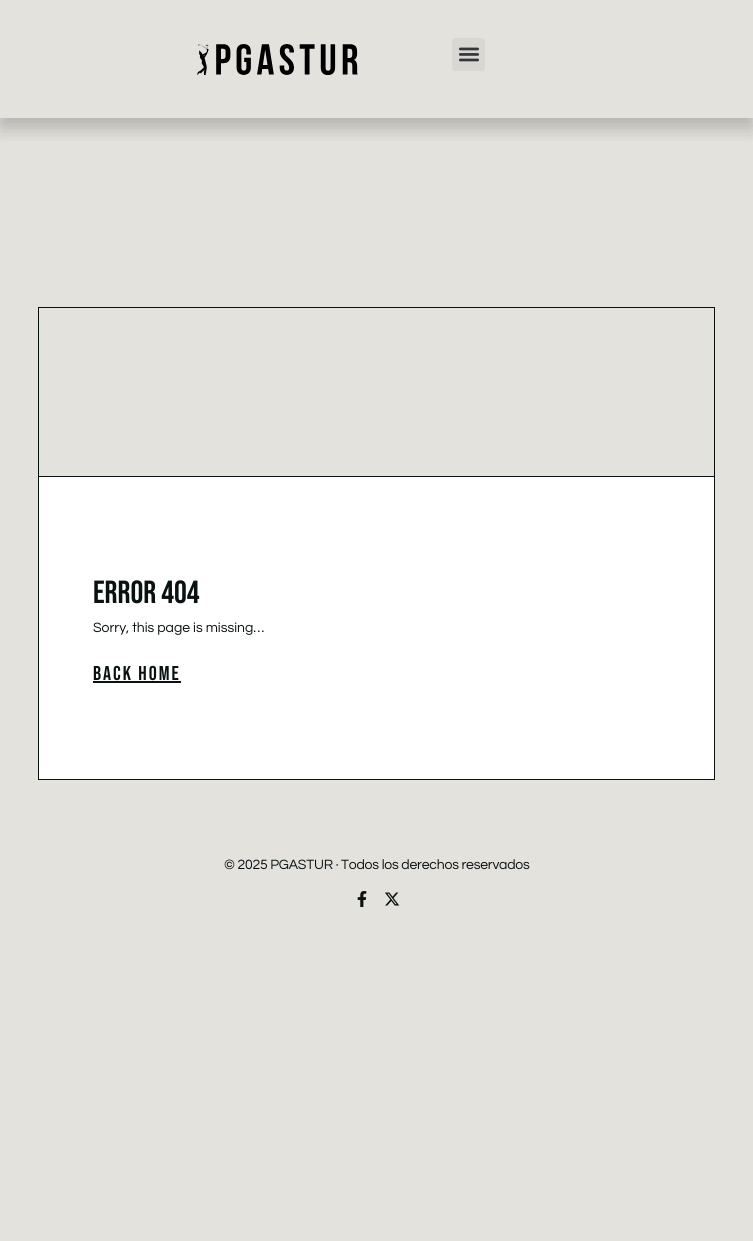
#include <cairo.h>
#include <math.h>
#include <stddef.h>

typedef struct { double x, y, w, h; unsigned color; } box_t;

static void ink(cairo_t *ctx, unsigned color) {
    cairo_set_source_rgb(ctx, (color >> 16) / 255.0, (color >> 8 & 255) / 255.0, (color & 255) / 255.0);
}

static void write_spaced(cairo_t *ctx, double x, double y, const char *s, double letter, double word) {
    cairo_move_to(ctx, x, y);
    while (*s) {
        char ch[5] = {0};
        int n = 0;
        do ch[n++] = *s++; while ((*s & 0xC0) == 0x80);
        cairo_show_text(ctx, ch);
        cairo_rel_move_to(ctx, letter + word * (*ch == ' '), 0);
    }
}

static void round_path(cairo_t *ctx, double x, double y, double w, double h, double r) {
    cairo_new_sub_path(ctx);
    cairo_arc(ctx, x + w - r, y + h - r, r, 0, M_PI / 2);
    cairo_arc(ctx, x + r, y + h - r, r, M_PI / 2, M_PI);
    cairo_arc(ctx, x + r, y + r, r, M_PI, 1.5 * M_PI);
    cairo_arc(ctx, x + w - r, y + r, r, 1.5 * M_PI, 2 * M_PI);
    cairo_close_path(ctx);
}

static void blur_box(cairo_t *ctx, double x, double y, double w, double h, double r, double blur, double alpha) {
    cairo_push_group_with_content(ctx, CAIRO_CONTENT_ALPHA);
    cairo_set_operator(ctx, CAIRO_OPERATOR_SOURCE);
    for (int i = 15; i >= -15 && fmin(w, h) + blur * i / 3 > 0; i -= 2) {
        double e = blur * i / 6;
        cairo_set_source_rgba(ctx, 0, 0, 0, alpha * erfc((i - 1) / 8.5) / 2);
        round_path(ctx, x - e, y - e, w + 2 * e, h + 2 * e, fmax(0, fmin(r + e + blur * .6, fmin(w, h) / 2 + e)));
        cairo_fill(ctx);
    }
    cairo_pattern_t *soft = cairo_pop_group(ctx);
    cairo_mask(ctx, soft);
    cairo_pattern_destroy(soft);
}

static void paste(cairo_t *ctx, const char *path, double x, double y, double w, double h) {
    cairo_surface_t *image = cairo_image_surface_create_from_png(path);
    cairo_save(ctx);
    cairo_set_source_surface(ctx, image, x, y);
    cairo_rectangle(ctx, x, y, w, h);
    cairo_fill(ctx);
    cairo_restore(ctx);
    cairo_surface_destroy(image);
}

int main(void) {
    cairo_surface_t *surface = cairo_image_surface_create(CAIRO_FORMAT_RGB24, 753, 1241);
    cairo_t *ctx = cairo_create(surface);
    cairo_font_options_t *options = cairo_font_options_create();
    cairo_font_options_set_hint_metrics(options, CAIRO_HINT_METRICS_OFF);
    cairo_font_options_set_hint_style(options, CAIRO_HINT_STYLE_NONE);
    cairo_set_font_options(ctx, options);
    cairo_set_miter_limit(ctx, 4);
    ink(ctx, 0xE3E2DD);
    cairo_paint(ctx);
    cairo_save(ctx);
    cairo_rectangle(ctx, 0, 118, 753, 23);
    cairo_clip(ctx);
    ink(ctx, 0x000000);
    blur_box(ctx, 0, 10, 753, 118, 0, 10, 0.22);
    cairo_restore(ctx);
    paste(ctx, "media/1.png", 197, 44, 161, 31);
    ink(ctx, 0xD8D7D2);
    round_path(ctx, 452, 38, 33, 33, 3);
    cairo_fill(ctx);
    paste(ctx, "media/2.png", 458, 47, 21, 15);
    cairo_rectangle(ctx, 38.5, 307.5, 676, 169);
    ink(ctx, 0x0A1111);
    cairo_set_line_width(ctx, 1);
    cairo_stroke(ctx);
    {
        static const box_t items[] = {
            {39, 477, 675, 302, 0xFFFFFF},
            {714, 477, 1, 303, 0x0A1111},
            {38, 779, 677, 1, 0x0A1111},
            {38, 477, 1, 303, 0x0A1111},
        };
        for (size_t i = 0; i < sizeof items / sizeof *items; i++) {
            ink(ctx, items[i].color);
            cairo_rectangle(ctx, items[i].x, items[i].y, items[i].w, items[i].h);
            cairo_fill(ctx);
        }
    }
    cairo_select_font_face(ctx, "Bebas Neue", CAIRO_FONT_SLANT_NORMAL, CAIRO_FONT_WEIGHT_NORMAL);
    cairo_set_font_size(ctx, 32);
    cairo_move_to(ctx, 93, 603);
    cairo_show_text(ctx, "ERROR 404");
    cairo_select_font_face(ctx, "Questrial", CAIRO_FONT_SLANT_NORMAL, CAIRO_FONT_WEIGHT_NORMAL);
    cairo_set_font_size(ctx, 14);
    cairo_move_to(ctx, 93, 632);
    cairo_show_text(ctx, "Sorry, this page is missing…");
    cairo_select_font_face(ctx, "Bebas Neue", CAIRO_FONT_SLANT_NORMAL, CAIRO_FONT_WEIGHT_NORMAL);
    cairo_set_font_size(ctx, 20);
    write_spaced(ctx, 93, 680, "BACK HOME", 2, 0);
    cairo_rectangle(ctx, 93, 681, 88, 2);
    cairo_fill(ctx);
    cairo_select_font_face(ctx, "Questrial", CAIRO_FONT_SLANT_NORMAL, CAIRO_FONT_WEIGHT_NORMAL);
    cairo_set_font_size(ctx, 14);
    write_spaced(ctx, 224, 869, "© 2025 PGASTUR · Todos los derechos reservados", -0.2, 0);
    paste(ctx, "media/3.png", 357, 891, 10, 16);
    paste(ctx, "media/4.png", 385, 892, 15, 14);
    cairo_surface_write_to_png(surface, "image.png");
    cairo_font_options_destroy(options);
    cairo_destroy(ctx);
    cairo_surface_destroy(surface);
    return 0;
}
